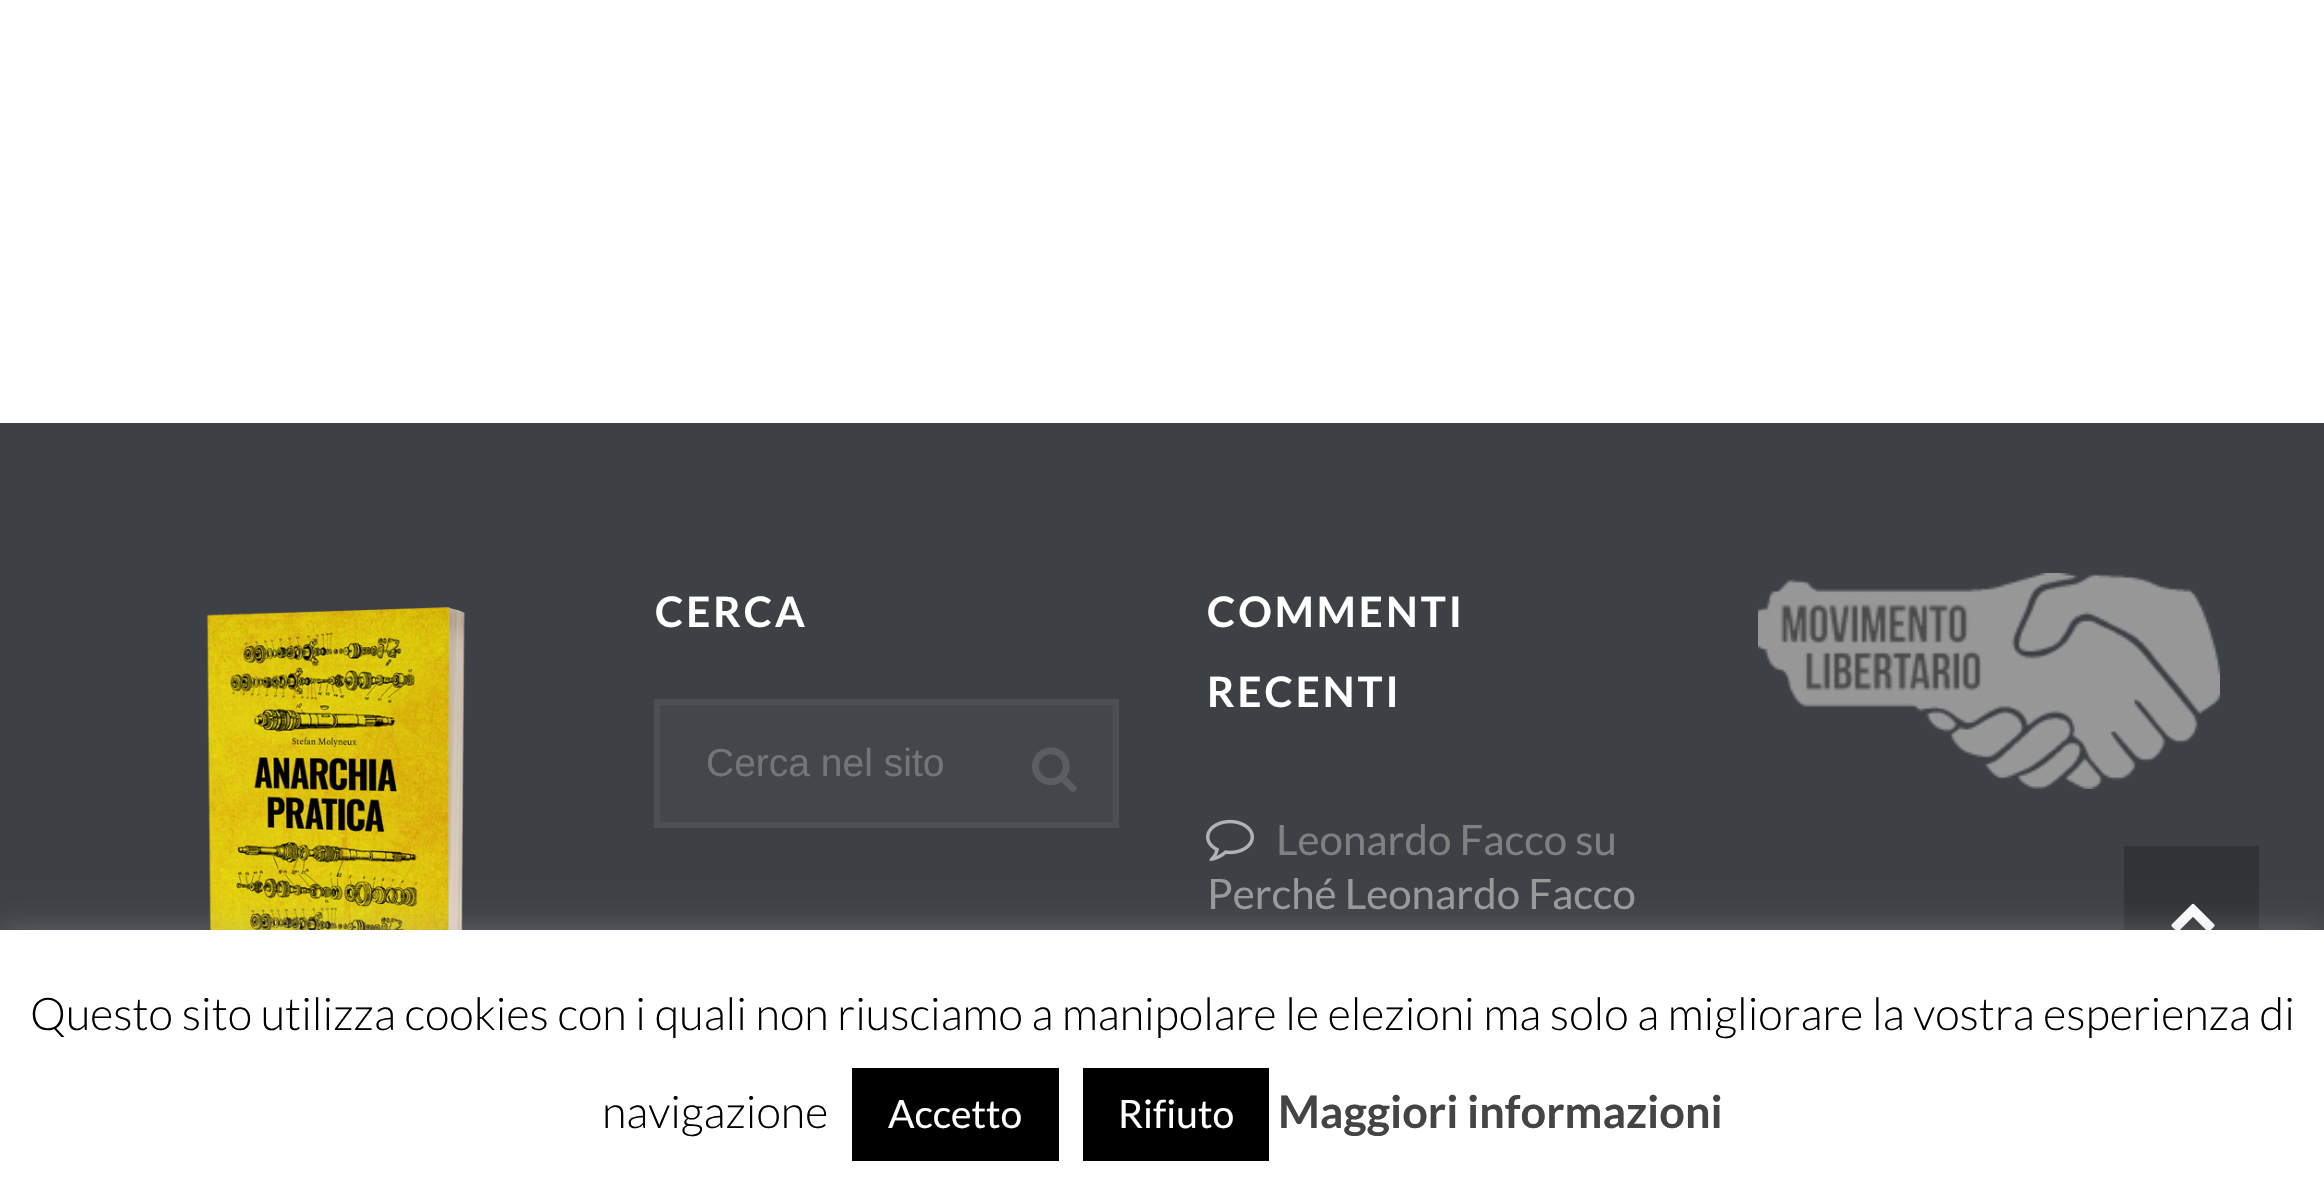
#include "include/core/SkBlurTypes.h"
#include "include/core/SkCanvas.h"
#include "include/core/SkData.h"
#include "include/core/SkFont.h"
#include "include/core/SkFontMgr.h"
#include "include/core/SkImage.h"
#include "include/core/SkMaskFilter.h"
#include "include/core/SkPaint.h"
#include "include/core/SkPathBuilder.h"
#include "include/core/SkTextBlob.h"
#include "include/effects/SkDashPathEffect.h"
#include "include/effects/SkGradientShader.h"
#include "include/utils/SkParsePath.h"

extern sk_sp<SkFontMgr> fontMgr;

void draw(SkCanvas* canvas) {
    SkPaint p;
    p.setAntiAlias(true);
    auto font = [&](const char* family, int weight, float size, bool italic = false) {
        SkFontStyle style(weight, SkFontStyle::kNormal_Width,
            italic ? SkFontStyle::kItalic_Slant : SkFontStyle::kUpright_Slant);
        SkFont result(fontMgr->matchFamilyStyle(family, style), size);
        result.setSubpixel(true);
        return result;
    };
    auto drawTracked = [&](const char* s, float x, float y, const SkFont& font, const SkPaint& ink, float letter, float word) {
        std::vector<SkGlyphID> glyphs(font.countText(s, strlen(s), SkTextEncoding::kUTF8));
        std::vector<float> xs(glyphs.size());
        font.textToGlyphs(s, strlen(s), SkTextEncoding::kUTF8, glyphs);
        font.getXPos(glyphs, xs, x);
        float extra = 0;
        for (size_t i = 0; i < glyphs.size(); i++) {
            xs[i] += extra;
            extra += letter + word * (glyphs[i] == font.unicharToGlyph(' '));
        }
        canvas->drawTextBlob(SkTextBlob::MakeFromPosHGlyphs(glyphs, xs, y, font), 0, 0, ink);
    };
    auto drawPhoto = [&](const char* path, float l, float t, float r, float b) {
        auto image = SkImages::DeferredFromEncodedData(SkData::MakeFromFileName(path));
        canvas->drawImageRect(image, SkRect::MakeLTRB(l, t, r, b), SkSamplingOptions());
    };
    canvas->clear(0xFFFFFFFF);
    p.setColor(0xFF3D4045);
    canvas->drawRect(SkRect::MakeLTRB(0, 423, 2324, 930), p);
    drawPhoto("media/1.png", 206, 607, 466, 930);
    auto font1 = font("Lato", 700, 42);
    p.setColor(0xFFFFFFFF);
    drawTracked("CERCA", 655, 627, font1, p, 3, 0);
    p.setColor(0xFF43464B);
    canvas->drawRect(SkRect::MakeLTRB(657, 702, 1116, 825), p);
    p.setStyle(SkPaint::kStroke_Style);
    p.setStrokeWidth(6);
    p.setColor(0xFF4C4F54);
    canvas->drawRect(SkRect::MakeLTRB(657, 702, 1116, 825), p);
    auto font2 = font("Liberation Sans", 400, 39);
    p.setStyle(SkPaint::kFill_Style);
    p.setColor(0xFF757575);
    canvas->drawString("Cerca nel sito", 706, 776, font2, p);
    drawPhoto("media/2.png", 1032, 747, 1077, 792);
    p.setColor(0xFFFFFFFF);
    drawTracked("COMMENTI", 1207, 627, font1, p, 3, 0);
    drawTracked("RECENTI", 1207, 707, font1, p, 3, 0);
    drawPhoto("media/3.png", 1206, 819, 1254, 861);
    auto font3 = font("Lato", 400, 42);
    p.setColor(0xFF808080);
    canvas->drawString("Leonardo Facco su", 1276, 855, font3, p);
    p.setColor(0xFF999999);
    canvas->drawString("Perché Leonardo Facco", 1207, 909, font3, p);
    drawPhoto("media/4.png", 1758, 573, 2220, 789);
    p.setColor(0x33000000);
    canvas->drawRect(SkRect::MakeLTRB(2124, 846, 2259, 930), p);
    drawPhoto("media/5.png", 2171, 903, 2215, 930);
    p.setColor(0x4DACABAB);
    p.setMaskFilter(SkMaskFilter::MakeBlur(kNormal_SkBlurStyle, 15));
    canvas->drawRect(SkRect::MakeLTRB(0, 927, 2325, 1194), p);
    p.setMaskFilter(nullptr);
    p.setColor(0xFFFFFFFF);
    canvas->drawRect(SkRect::MakeLTRB(0, 930, 2324, 1196), p);
    auto font4 = font("Lato", 300, 45);
    p.setColor(0xFF000000);
    canvas->drawString("Questo sito utilizza cookies con i quali non riusciamo a manipolare le elezioni ma solo a migliorare la vostra esperienza di", 30, 1030, font4, p);
    canvas->drawString("navigazione", 602, 1128, font4, p);
    canvas->drawRect(SkRect::MakeLTRB(852, 1068, 1059, 1161), p);
    auto font5 = font("Lato", 400, 39);
    p.setColor(0xFFFFFFFF);
    canvas->drawString("Accetto", 888, 1128, font5, p);
    p.setColor(0xFF000000);
    canvas->drawRect(SkRect::MakeLTRB(1083, 1068, 1269, 1161), p);
    p.setColor(0xFFFFFFFF);
    canvas->drawString("Rifiuto", 1118, 1128, font5, p);
    auto font6 = font("Lato", 700, 45);
    p.setColor(0xFF444444);
    canvas->drawString("Maggiori informazioni", 1278, 1128, font6, p);
}
